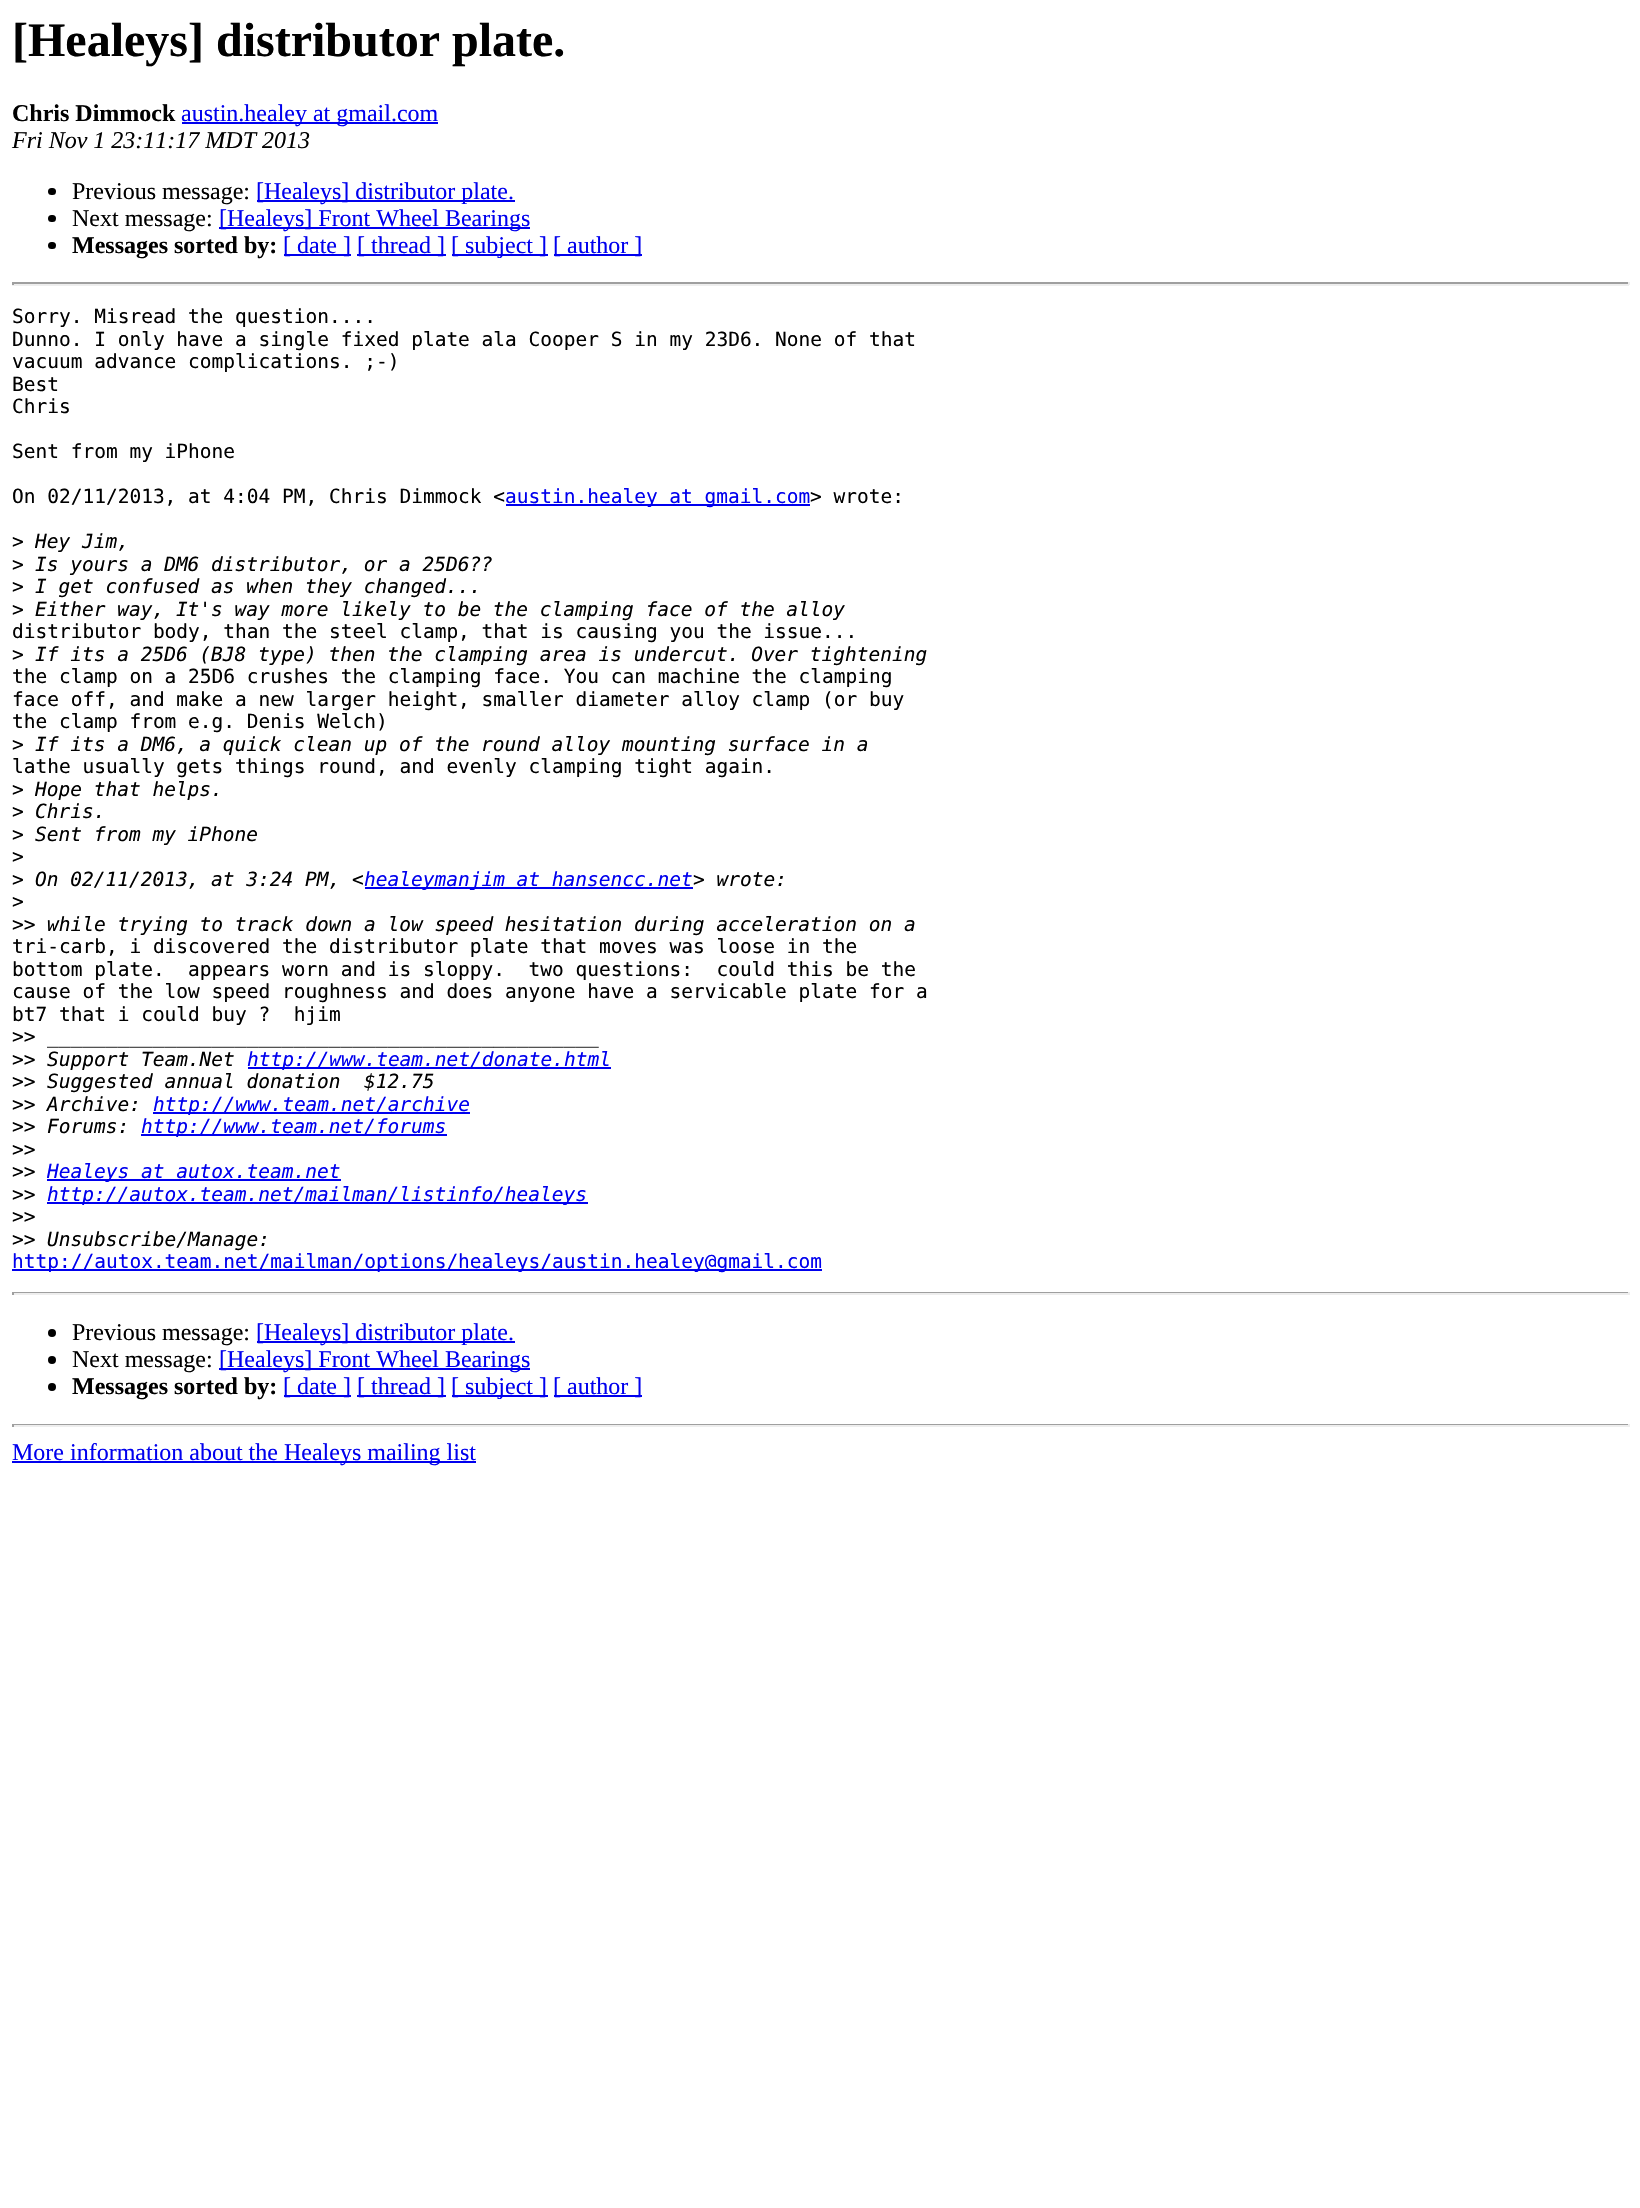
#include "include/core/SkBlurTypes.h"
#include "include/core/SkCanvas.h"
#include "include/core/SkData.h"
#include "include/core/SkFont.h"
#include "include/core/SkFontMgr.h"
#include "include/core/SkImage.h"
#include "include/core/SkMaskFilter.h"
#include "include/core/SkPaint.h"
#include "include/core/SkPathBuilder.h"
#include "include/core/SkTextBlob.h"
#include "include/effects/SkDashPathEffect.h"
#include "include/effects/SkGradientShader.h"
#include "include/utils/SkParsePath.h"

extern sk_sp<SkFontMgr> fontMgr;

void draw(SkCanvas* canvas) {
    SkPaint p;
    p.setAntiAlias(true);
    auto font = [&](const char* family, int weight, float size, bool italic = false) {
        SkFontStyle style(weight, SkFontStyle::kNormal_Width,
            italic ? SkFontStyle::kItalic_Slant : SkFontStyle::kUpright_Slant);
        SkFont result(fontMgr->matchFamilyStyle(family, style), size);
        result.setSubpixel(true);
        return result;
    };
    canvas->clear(0xFFFFFFFF);
    auto font1 = font("Liberation Serif", 700, 48);
    p.setColor(0xFF000000);
    canvas->drawString("[Healeys] distributor plate.", 12, 56, font1, p);
    auto font2 = font("Liberation Serif", 700, 24);
    canvas->drawString("Chris Dimmock", 12, 121, font2, p);
    p.setColor(0xFF0000EE);
    canvas->drawRect(SkRect::MakeLTRB(182, 122, 438, 124), p);
    auto font3 = font("Liberation Serif", 400, 24);
    canvas->drawString("austin.healey at gmail.com", 181, 121, font3, p);
    auto font4 = font("Liberation Serif", 400, 24, true);
    p.setColor(0xFF000000);
    canvas->drawString("Fri Nov 1 23:11:17 MDT 2013", 12, 148, font4, p);
    canvas->drawRoundRect(SkRect::MakeLTRB(48, 188, 56, 195), 3.5f, 3.5f, p);
    canvas->drawString("Previous message:", 72, 199, font3, p);
    p.setColor(0xFF0000EE);
    canvas->drawRect(SkRect::MakeLTRB(257, 200, 515, 202), p);
    canvas->drawString("[Healeys] distributor plate.", 256, 199, font3, p);
    p.setColor(0xFF000000);
    canvas->drawRoundRect(SkRect::MakeLTRB(48, 215, 56, 222), 3.5f, 3.5f, p);
    canvas->drawString("Next message:", 72, 226, font3, p);
    p.setColor(0xFF0000EE);
    canvas->drawRect(SkRect::MakeLTRB(219, 227, 530, 229), p);
    canvas->drawString("[Healeys] Front Wheel Bearings", 219, 226, font3, p);
    p.setColor(0xFF000000);
    canvas->drawRoundRect(SkRect::MakeLTRB(48, 242, 56, 249), 3.5f, 3.5f, p);
    canvas->drawString("Messages sorted by:", 72, 253, font2, p);
    p.setColor(0xFF0000EE);
    canvas->drawRect(SkRect::MakeLTRB(284, 254, 351, 256), p);
    canvas->drawString("[ date ]", 283, 253, font3, p);
    canvas->drawRect(SkRect::MakeLTRB(357, 254, 446, 256), p);
    canvas->drawString("[ thread ]", 357, 253, font3, p);
    canvas->drawRect(SkRect::MakeLTRB(452, 254, 548, 256), p);
    canvas->drawString("[ subject ]", 451, 253, font3, p);
    canvas->drawRect(SkRect::MakeLTRB(554, 254, 642, 256), p);
    canvas->drawString("[ author ]", 553, 253, font3, p);
    {
        const struct { float l, t, r, b; SkColor color; } items[] = {
            {12, 282, 1629, 284, 0xFF9F9F9F},
            {1628, 282, 1630, 285, 0xFFEEEEEE},
            {12, 284, 1629, 286, 0xFFEEEEEE},
            {12, 282, 14, 285, 0xFF9F9F9F},
        };
        for (auto [l, t, r, b, color] : items) {
            p.setColor(color);
            canvas->drawRect(SkRect::MakeLTRB(l, t, r, b), p);
        }
    }
    auto font5 = font("DejaVu Sans Mono", 400, 19.5f);
    p.setColor(0xFF000000);
    {
        const struct { const char* s; float x, y; } items[] = {
            {"Sorry. Misread the question....", 12, 323},
            {"Dunno. I only have a single fixed plate ala Cooper S in my 23D6. None of that", 12, 346},
            {"vacuum advance complications. ;-)", 12, 368},
            {"Best", 12, 391},
            {"Chris", 12, 413},
            {"Sent from my iPhone", 12, 458},
            {"On 02/11/2013, at 4:04 PM, Chris Dimmock <", 12, 503},
        };
        for (auto [s, x, y] : items) {
            canvas->drawString(s, x, y, font5, p);
        }
    }
    p.setColor(0xFF0000EE);
    canvas->drawRect(SkRect::MakeLTRB(506, 504, 810, 506), p);
    canvas->drawString("austin.healey at gmail.com", 505, 503, font5, p);
    p.setColor(0xFF000000);
    canvas->drawString("> wrote:", 810, 503, font5, p);
    canvas->drawString(">", 12, 548, font5, p);
    auto font6 = font("DejaVu Sans Mono", 400, 19.5f, true);
    canvas->drawString("Hey Jim,", 35, 548, font6, p);
    canvas->drawString(">", 12, 571, font5, p);
    canvas->drawString("Is yours a DM6 distributor, or a 25D6?\077", 35, 571, font6, p);
    canvas->drawString(">", 12, 593, font5, p);
    canvas->drawString("I get confused as when they changed...", 35, 593, font6, p);
    canvas->drawString(">", 12, 616, font5, p);
    canvas->drawString("Either way, It's way more likely to be the clamping face of the alloy", 35, 616, font6, p);
    canvas->drawString("distributor body, than the steel clamp, that is causing you the issue...", 12, 638, font5, p);
    canvas->drawString(">", 12, 661, font5, p);
    canvas->drawString("If its a 25D6 (BJ8 type) then the clamping area is undercut. Over tightening", 35, 661, font6, p);
    {
        const struct { const char* s; float x, y; } items[] = {
            {"the clamp on a 25D6 crushes the clamping face. You can machine the clamping", 12, 683},
            {"face off, and make a new larger height, smaller diameter alloy clamp (or buy", 12, 706},
            {"the clamp from e.g. Denis Welch)", 12, 728},
            {">", 12, 751},
        };
        for (auto [s, x, y] : items) {
            canvas->drawString(s, x, y, font5, p);
        }
    }
    canvas->drawString("If its a DM6, a quick clean up of the round alloy mounting surface in a", 35, 751, font6, p);
    canvas->drawString("lathe usually gets things round, and evenly clamping tight again.", 12, 773, font5, p);
    canvas->drawString(">", 12, 796, font5, p);
    canvas->drawString("Hope that helps.", 35, 796, font6, p);
    canvas->drawString(">", 12, 818, font5, p);
    canvas->drawString("Chris.", 35, 818, font6, p);
    canvas->drawString(">", 12, 841, font5, p);
    canvas->drawString("Sent from my iPhone", 35, 841, font6, p);
    canvas->drawString(">", 12, 863, font5, p);
    canvas->drawString(">", 12, 886, font5, p);
    canvas->drawString("On 02/11/2013, at 3:24 PM, <", 35, 886, font6, p);
    p.setColor(0xFF0000EE);
    canvas->drawRect(SkRect::MakeLTRB(365, 887, 693, 889), p);
    canvas->drawString("healeymanjim at hansencc.net", 364, 886, font6, p);
    p.setColor(0xFF000000);
    canvas->drawString("> wrote:", 693, 886, font6, p);
    canvas->drawString(">", 12, 908, font5, p);
    canvas->drawString(">>", 12, 931, font5, p);
    canvas->drawString("while trying to track down a low speed hesitation during acceleration on a", 47, 931, font6, p);
    {
        const struct { const char* s; float x, y; } items[] = {
            {"tri-carb, i discovered the distributor plate that moves was loose in the", 12, 953},
            {"bottom plate.  appears worn and is sloppy.  two questions:  could this be the", 12, 976},
            {"cause of the low speed roughness and does anyone have a servicable plate for a", 12, 998},
            {"bt7 that i could buy ?  hjim", 12, 1021},
            {">>", 12, 1043},
        };
        for (auto [s, x, y] : items) {
            canvas->drawString(s, x, y, font5, p);
        }
    }
    canvas->drawString("_______________________________________________", 47, 1043, font6, p);
    canvas->drawString(">>", 12, 1066, font5, p);
    canvas->drawString("Support Team.Net", 47, 1066, font6, p);
    p.setColor(0xFF0000EE);
    canvas->drawRect(SkRect::MakeLTRB(248, 1067, 611, 1069), p);
    canvas->drawString("http://www.team.net/donate.html", 247, 1066, font6, p);
    p.setColor(0xFF000000);
    canvas->drawString(">>", 12, 1088, font5, p);
    canvas->drawString("Suggested annual donation  $12.75", 47, 1088, font6, p);
    canvas->drawString(">>", 12, 1111, font5, p);
    canvas->drawString("Archive:", 47, 1111, font6, p);
    p.setColor(0xFF0000EE);
    canvas->drawRect(SkRect::MakeLTRB(153, 1112, 470, 1114), p);
    canvas->drawString("http://www.team.net/archive", 153, 1111, font6, p);
    p.setColor(0xFF000000);
    canvas->drawString(">>", 12, 1133, font5, p);
    canvas->drawString("Forums:", 47, 1133, font6, p);
    p.setColor(0xFF0000EE);
    canvas->drawRect(SkRect::MakeLTRB(141, 1134, 447, 1136), p);
    canvas->drawString("http://www.team.net/forums", 141, 1133, font6, p);
    p.setColor(0xFF000000);
    canvas->drawString(">>", 12, 1156, font5, p);
    canvas->drawString(">>", 12, 1178, font5, p);
    p.setColor(0xFF0000EE);
    canvas->drawRect(SkRect::MakeLTRB(47, 1179, 341, 1181), p);
    canvas->drawString("Healeys at autox.team.net", 47, 1178, font6, p);
    p.setColor(0xFF000000);
    canvas->drawString(">>", 12, 1201, font5, p);
    p.setColor(0xFF0000EE);
    canvas->drawRect(SkRect::MakeLTRB(47, 1202, 588, 1204), p);
    canvas->drawString("http://autox.team.net/mailman/listinfo/healeys", 47, 1201, font6, p);
    p.setColor(0xFF000000);
    canvas->drawString(">>", 12, 1223, font5, p);
    canvas->drawString(">>", 12, 1246, font5, p);
    canvas->drawString("Unsubscribe/Manage:", 47, 1246, font6, p);
    p.setColor(0xFF0000EE);
    canvas->drawRect(SkRect::MakeLTRB(12, 1269, 822, 1271), p);
    canvas->drawString("http://autox.team.net/mailman/options/healeys/austin.healey@gmail.com", 12, 1268, font5, p);
    {
        const struct { float l, t, r, b; SkColor color; } items[] = {
            {12, 1292, 1629, 1293, 0xFF9F9F9F},
            {1628, 1292, 1630, 1295, 0xFFEEEEEE},
            {12, 1293, 1629, 1295, 0xFFEEEEEE},
            {12, 1292, 14, 1295, 0xFF9F9F9F},
        };
        for (auto [l, t, r, b, color] : items) {
            p.setColor(color);
            canvas->drawRect(SkRect::MakeLTRB(l, t, r, b), p);
        }
    }
    p.setColor(0xFF000000);
    canvas->drawCircle(52, 1333, 4, p);
    canvas->drawString("Previous message:", 72, 1340, font3, p);
    p.setColor(0xFF0000EE);
    canvas->drawRect(SkRect::MakeLTRB(257, 1341, 515, 1343), p);
    canvas->drawString("[Healeys] distributor plate.", 256, 1340, font3, p);
    p.setColor(0xFF000000);
    canvas->drawCircle(52, 1360, 4, p);
    canvas->drawString("Next message:", 72, 1367, font3, p);
    p.setColor(0xFF0000EE);
    canvas->drawRect(SkRect::MakeLTRB(219, 1368, 530, 1370), p);
    canvas->drawString("[Healeys] Front Wheel Bearings", 219, 1367, font3, p);
    p.setColor(0xFF000000);
    canvas->drawCircle(52, 1387, 4, p);
    canvas->drawString("Messages sorted by:", 72, 1394, font2, p);
    p.setColor(0xFF0000EE);
    canvas->drawRect(SkRect::MakeLTRB(284, 1395, 351, 1397), p);
    canvas->drawString("[ date ]", 283, 1394, font3, p);
    canvas->drawRect(SkRect::MakeLTRB(357, 1395, 446, 1397), p);
    canvas->drawString("[ thread ]", 357, 1394, font3, p);
    canvas->drawRect(SkRect::MakeLTRB(452, 1395, 548, 1397), p);
    canvas->drawString("[ subject ]", 451, 1394, font3, p);
    canvas->drawRect(SkRect::MakeLTRB(554, 1395, 642, 1397), p);
    canvas->drawString("[ author ]", 553, 1394, font3, p);
    {
        const struct { float l, t, r, b; SkColor color; } items[] = {
            {12, 1424, 1629, 1425, 0xFF9F9F9F},
            {1628, 1424, 1630, 1427, 0xFFEEEEEE},
            {12, 1425, 1629, 1427, 0xFFEEEEEE},
            {12, 1424, 14, 1427, 0xFF9F9F9F},
            {12, 1461, 476, 1463, 0xFF0000EE},
        };
        for (auto [l, t, r, b, color] : items) {
            p.setColor(color);
            canvas->drawRect(SkRect::MakeLTRB(l, t, r, b), p);
        }
    }
    canvas->drawString("More information about the Healeys mailing list", 12, 1460, font3, p);
}
